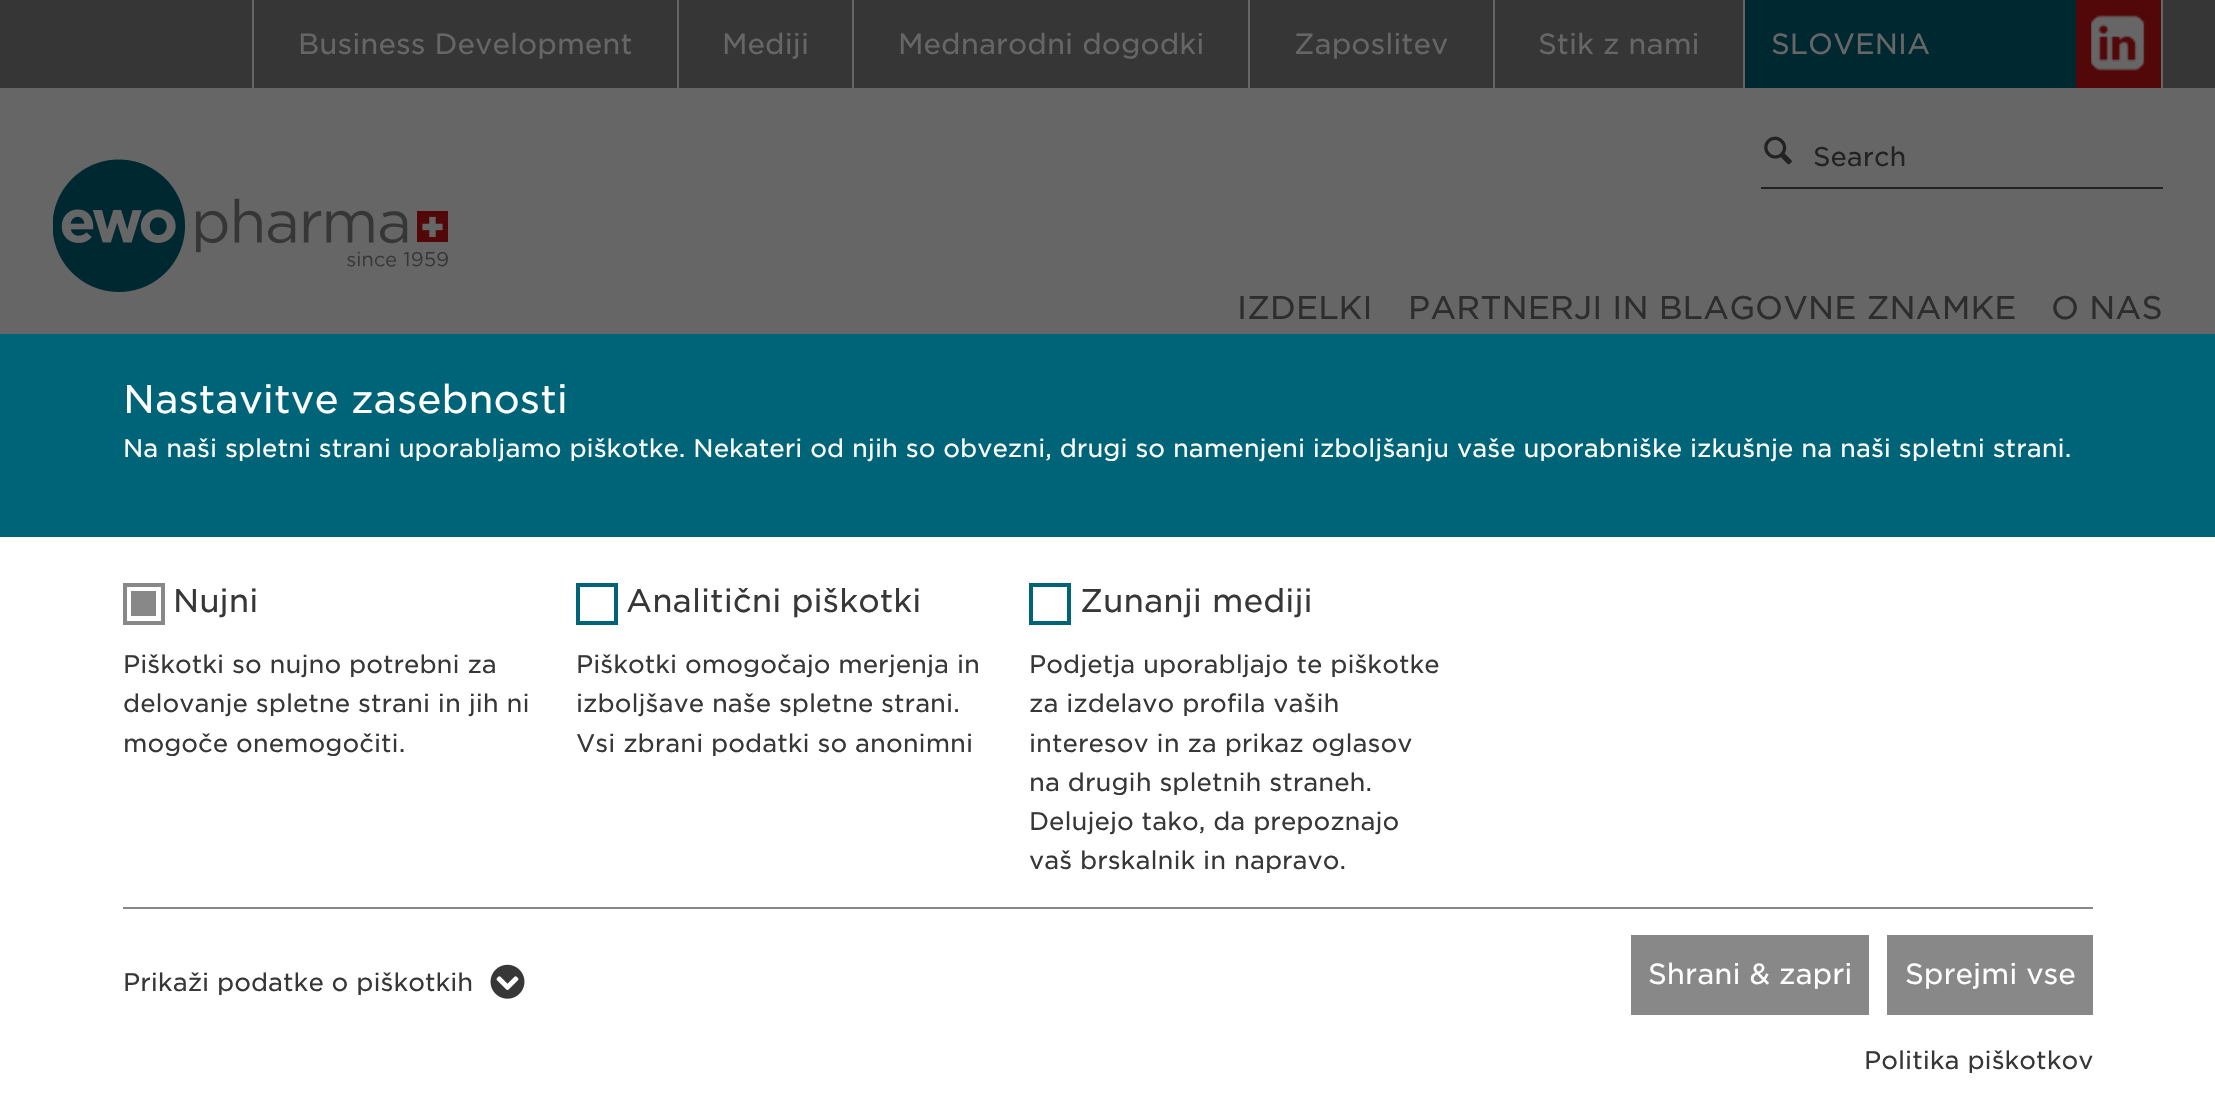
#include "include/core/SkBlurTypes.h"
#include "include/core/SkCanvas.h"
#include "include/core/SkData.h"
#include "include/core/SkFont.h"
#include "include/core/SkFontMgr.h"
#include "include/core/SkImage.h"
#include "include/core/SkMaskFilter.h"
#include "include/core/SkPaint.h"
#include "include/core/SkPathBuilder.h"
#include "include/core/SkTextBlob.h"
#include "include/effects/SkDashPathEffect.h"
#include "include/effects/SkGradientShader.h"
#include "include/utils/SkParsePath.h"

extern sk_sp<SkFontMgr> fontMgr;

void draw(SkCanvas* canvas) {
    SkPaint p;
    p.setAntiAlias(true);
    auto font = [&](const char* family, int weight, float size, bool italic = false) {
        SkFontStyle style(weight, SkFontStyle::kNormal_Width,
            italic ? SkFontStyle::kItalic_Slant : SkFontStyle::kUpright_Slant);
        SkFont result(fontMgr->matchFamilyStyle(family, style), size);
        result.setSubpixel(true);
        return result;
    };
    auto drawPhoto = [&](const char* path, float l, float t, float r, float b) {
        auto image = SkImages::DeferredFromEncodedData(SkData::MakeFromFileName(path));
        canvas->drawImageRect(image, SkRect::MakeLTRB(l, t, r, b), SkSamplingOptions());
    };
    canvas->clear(0xFF666666);
    p.setColor(0xFF363636);
    canvas->drawRect(SkRect::MakeLTRB(0, 0, 2215, 88), p);
    p.setColor(0xFF666666);
    canvas->drawRect(SkRect::MakeLTRB(252, 0, 254, 88), p);
    auto font1 = font("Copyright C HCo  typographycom", 300, 28);
    canvas->drawString("Business Development", 298, 54, font1, p);
    canvas->drawRect(SkRect::MakeLTRB(677, 0, 679, 88), p);
    canvas->drawString("Mediji", 722, 54, font1, p);
    canvas->drawRect(SkRect::MakeLTRB(852, 0, 854, 88), p);
    canvas->drawString("Mednarodni dogodki", 898, 54, font1, p);
    canvas->drawRect(SkRect::MakeLTRB(1248, 0, 1250, 88), p);
    canvas->drawString("Zaposlitev", 1294, 54, font1, p);
    canvas->drawRect(SkRect::MakeLTRB(1493, 0, 1495, 88), p);
    canvas->drawString("Stik z nami", 1538, 54, font1, p);
    p.setColor(0xFF002830);
    canvas->drawRect(SkRect::MakeLTRB(1745, 0, 2076, 88), p);
    p.setColor(0xFF666666);
    canvas->drawRect(SkRect::MakeLTRB(1743, 0, 1745, 88), p);
    canvas->drawString("SLOVENIA", 1771, 54, font1, p);
    p.setColor(0xFF520808);
    canvas->drawRect(SkRect::MakeLTRB(2076, 0, 2161, 88), p);
    drawPhoto("media/1.png", 2091, 15, 2145, 71);
    p.setColor(0xFF666666);
    canvas->drawRect(SkRect::MakeLTRB(2161, 0, 2163, 88), p);
    drawPhoto("media/2.png", 53, 159, 448, 292);
    drawPhoto("media/3.png", 1764, 136, 1792, 165);
    p.setColor(0xFF222222);
    canvas->drawRect(SkRect::MakeLTRB(1761, 187, 2163, 189), p);
    auto font2 = font("Copyright C HCo  typographycom", 300, 26);
    canvas->drawString("Search", 1813, 166, font2, p);
    auto font3 = font("Copyright C HCo  typographycom", 300, 31.5f);
    p.setColor(0xFF2D2D2D);
    {
        const struct { const char* s; float x, y; } items[] = {
            {"IZDELKI", 1237, 319},
            {"PARTNERJI IN BLAGOVNE ZNAMKE", 1408, 319},
            {"O NAS", 2051, 319},
        };
        for (auto [s, x, y] : items) {
            canvas->drawString(s, x, y, font3, p);
        }
    }
    p.setColor(0xFFFFFFFF);
    canvas->drawRect(SkRect::MakeLTRB(0, 537, 2215, 1114), p);
    p.setColor(0xFF006478);
    canvas->drawRect(SkRect::MakeLTRB(0, 334, 2215, 537), p);
    auto font4 = font("Copyright C HCo  typographycom", 300, 38.5f);
    p.setColor(0xFFFFFFFF);
    canvas->drawString("Nastavitve zasebnosti", 123, 413, font4, p);
    auto font5 = font("Copyright C HCo  typographycom", 300, 24.5f);
    canvas->drawString("Na naši spletni strani uporabljamo piškotke. Nekateri od njih so obvezni, drugi so namenjeni izboljšanju vaše uporabniške izkušnje na naši spletni strani.", 123, 457, font5, p);
    p.setColor(0xFF888888);
    canvas->drawRect(SkRect::MakeLTRB(123, 907, 2093, 909), p);
    canvas->drawRect(SkRect::MakeLTRB(131, 591, 156, 616), p);
    p.setStyle(SkPaint::kStroke_Style);
    p.setStrokeWidth(4);
    canvas->drawRect(SkRect::MakeLTRB(125, 585, 163, 623), p);
    p.setStyle(SkPaint::kFill_Style);
    p.setColor(0xFF373737);
    canvas->drawString("Nujni", 173, 612, font3, p);
    {
        const struct { const char* s; float x, y; } items[] = {
            {"Piškotki so nujno potrebni za", 123, 673},
            {"delovanje spletne strani in jih ni", 123, 712},
            {"mogoče onemogočiti.", 123, 752},
        };
        for (auto [s, x, y] : items) {
            canvas->drawString(s, x, y, font5, p);
        }
    }
    p.setStyle(SkPaint::kStroke_Style);
    p.setColor(0xFF006478);
    canvas->drawRect(SkRect::MakeLTRB(578, 585, 616, 623), p);
    p.setStyle(SkPaint::kFill_Style);
    p.setColor(0xFF373737);
    canvas->drawString("Analitični piškotki", 626, 612, font3, p);
    {
        const struct { const char* s; float x, y; } items[] = {
            {"Piškotki omogočajo merjenja in", 576, 673},
            {"izboljšave naše spletne strani.", 576, 712},
            {"Vsi zbrani podatki so anonimni", 576, 752},
        };
        for (auto [s, x, y] : items) {
            canvas->drawString(s, x, y, font5, p);
        }
    }
    p.setStyle(SkPaint::kStroke_Style);
    p.setColor(0xFF006478);
    canvas->drawRect(SkRect::MakeLTRB(1031, 585, 1069, 623), p);
    p.setStyle(SkPaint::kFill_Style);
    p.setColor(0xFF373737);
    canvas->drawString("Zunanji mediji", 1080, 612, font3, p);
    {
        const struct { const char* s; float x, y; } items[] = {
            {"Podjetja uporabljajo te piškotke", 1029, 673},
            {"za izdelavo profila vaših", 1029, 712},
            {"interesov in za prikaz oglasov", 1029, 752},
            {"na drugih spletnih straneh.", 1029, 791},
            {"Delujejo tako, da prepoznajo", 1029, 830},
            {"vaš brskalnik in napravo.", 1029, 869},
            {"Prikaži podatke o piškotkih", 123, 991},
        };
        for (auto [s, x, y] : items) {
            canvas->drawString(s, x, y, font5, p);
        }
    }
    drawPhoto("media/4.png", 490, 964, 525, 999);
    p.setColor(0xFF888888);
    canvas->drawRect(SkRect::MakeLTRB(1631, 935, 1869, 1015), p);
    p.setColor(0xFFFFFFFF);
    canvas->drawString("Shrani & zapri", 1648, 984, font1, p);
    p.setColor(0xFF888888);
    canvas->drawRect(SkRect::MakeLTRB(1887, 935, 2093, 1015), p);
    p.setColor(0xFFFFFFFF);
    canvas->drawString("Sprejmi vse", 1905, 984, font1, p);
    p.setColor(0xFF373737);
    canvas->drawString("Politika piškotkov", 1864, 1069, font5, p);
}
